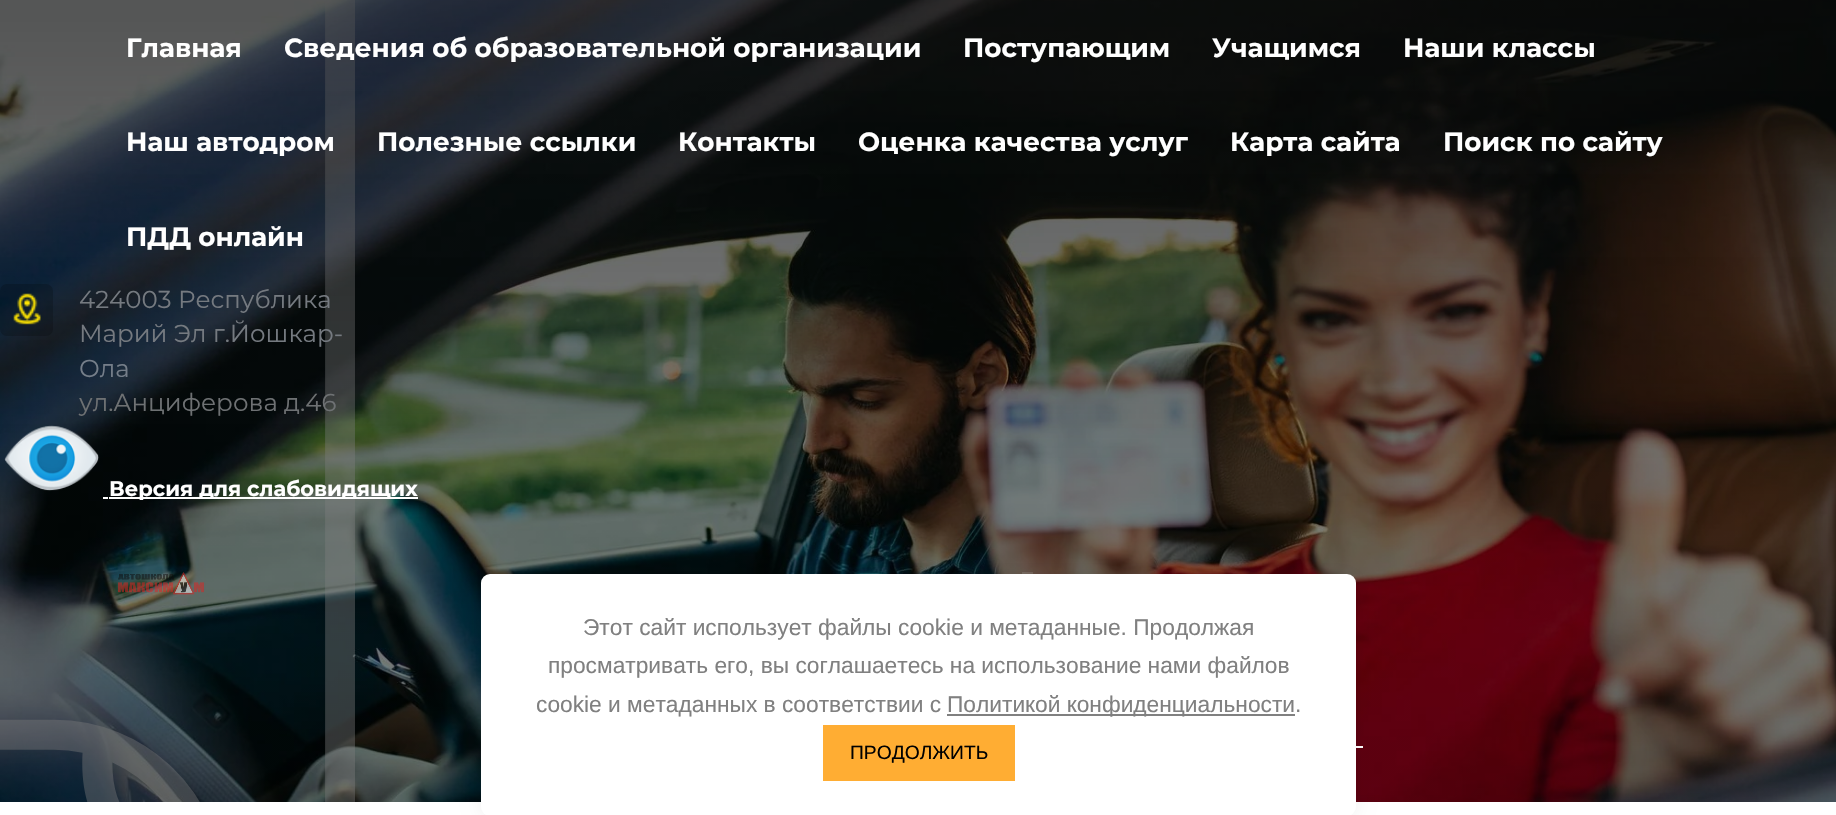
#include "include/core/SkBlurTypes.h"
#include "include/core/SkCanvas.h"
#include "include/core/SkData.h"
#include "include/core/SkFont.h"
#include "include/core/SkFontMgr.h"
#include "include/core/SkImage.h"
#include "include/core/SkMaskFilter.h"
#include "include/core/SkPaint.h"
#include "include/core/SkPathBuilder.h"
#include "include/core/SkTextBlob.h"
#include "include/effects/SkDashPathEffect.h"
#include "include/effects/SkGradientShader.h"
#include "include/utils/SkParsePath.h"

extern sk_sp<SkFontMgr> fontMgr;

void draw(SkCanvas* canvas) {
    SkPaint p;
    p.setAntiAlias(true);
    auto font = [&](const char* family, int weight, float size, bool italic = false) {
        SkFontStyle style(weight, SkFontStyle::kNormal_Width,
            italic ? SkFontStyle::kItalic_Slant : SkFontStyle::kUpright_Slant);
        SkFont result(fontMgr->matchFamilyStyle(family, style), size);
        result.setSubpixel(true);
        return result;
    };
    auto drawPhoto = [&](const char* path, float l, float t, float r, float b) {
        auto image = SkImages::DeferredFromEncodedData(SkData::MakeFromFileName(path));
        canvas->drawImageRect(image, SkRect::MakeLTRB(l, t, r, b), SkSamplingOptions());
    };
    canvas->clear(0xFFFFFFFF);
    drawPhoto("media/1.png", 0, 0, 1836, 802);
    auto font1 = font("Montserrat", 700, 26.25f);
    p.setColor(0xFFFFFFFF);
    {
        const struct { const char* s; float x, y; } items[] = {
            {"Главная", 126, 57},
            {"Сведения об образовательной организации", 284, 57},
            {"Поступающим", 963, 57},
            {"Учащимся", 1212, 57},
            {"Наши классы", 1403, 57},
            {"Наш автодром", 126, 151},
            {"Полезные ссылки", 377, 151},
            {"Контакты", 678, 151},
            {"Оценка качества услуг", 858, 151},
            {"Карта сайта", 1230, 151},
            {"Поиск по сайту", 1443, 151},
            {"ПДД онлайн", 126, 246},
        };
        for (auto [s, x, y] : items) {
            canvas->drawString(s, x, y, font1, p);
        }
    }
    p.setColor(0x33000000);
    canvas->drawRoundRect(SkRect::MakeLTRB(0, 284, 53, 336), 7, 7, p);
    drawPhoto("media/2.png", 13, 293, 41, 325);
    auto font2 = font("Montserrat", 400, 24.5f);
    p.setColor(0xFF757A80);
    canvas->drawString("424003 Республика", 79, 308, font2, p);
    canvas->drawString("Марий Эл г.Йошкар-", 79, 342, font2, p);
    p.setColor(0xFF757E89);
    canvas->drawString("Ола", 79, 377, font2, p);
    p.setColor(0xFF6E7173);
    canvas->drawString("ул.Анциферова д.46", 79, 411, font2, p);
    drawPhoto("media/3.png", 4, 425, 99, 491);
    p.setColor(0xFFFFFFFF);
    canvas->drawRect(SkRect::MakeLTRB(109, 497, 418, 499), p);
    auto font3 = font("Montserrat", 700, 21);
    canvas->drawString("Версия для слабовидящих", 109, 496, font3, p);
    canvas->drawRect(SkRect::MakeLTRB(103, 497, 108, 499), p);
    drawPhoto("media/4.png", 118, 572, 204, 595);
    p.setColor(0x1CFFFFFF);
    canvas->drawRect(SkRect::MakeLTRB(1022, 572, 1033, 574), p);
    p.setColor(0xFFFFFFFF);
    canvas->drawRect(SkRect::MakeLTRB(1356, 746, 1363, 748), p);
    p.setColor(0x0F000000);
    p.setMaskFilter(SkMaskFilter::MakeBlur(kNormal_SkBlurStyle, 9));
    canvas->drawRoundRect(SkRect::MakeLTRB(481, 576, 1356, 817), 9, 9, p);
    p.setMaskFilter(nullptr);
    p.setColor(0xFFFFFFFF);
    canvas->drawRoundRect(SkRect::MakeLTRB(481, 574, 1356, 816), 9, 9, p);
    auto font4 = font("Liberation Sans", 400, 22.75f);
    p.setColor(0xFF808080);
    {
        const struct { const char* s; float x, y; } items[] = {
            {"Этот сайт использует файлы cookie и метаданные. Продолжая", 583, 635},
            {"просматривать его, вы соглашаетесь на использование нами файлов", 548, 673},
            {"cookie и метаданных в соответствии с", 536, 712},
        };
        for (auto [s, x, y] : items) {
            canvas->drawString(s, x, y, font4, p);
        }
    }
    canvas->drawRect(SkRect::MakeLTRB(947, 714, 1295, 716), p);
    canvas->drawString("Политикой конфиденциальности.", 947, 712, font4, p);
    p.setColor(0xFFFFAD33);
    canvas->drawRect(SkRect::MakeLTRB(823, 725, 1015, 781), p);
    auto font5 = font("Liberation Sans", 400, 19.25f);
    p.setColor(0xFF000000);
    canvas->drawString("ПРОДОЛЖИТЬ", 850, 759, font5, p);
}
